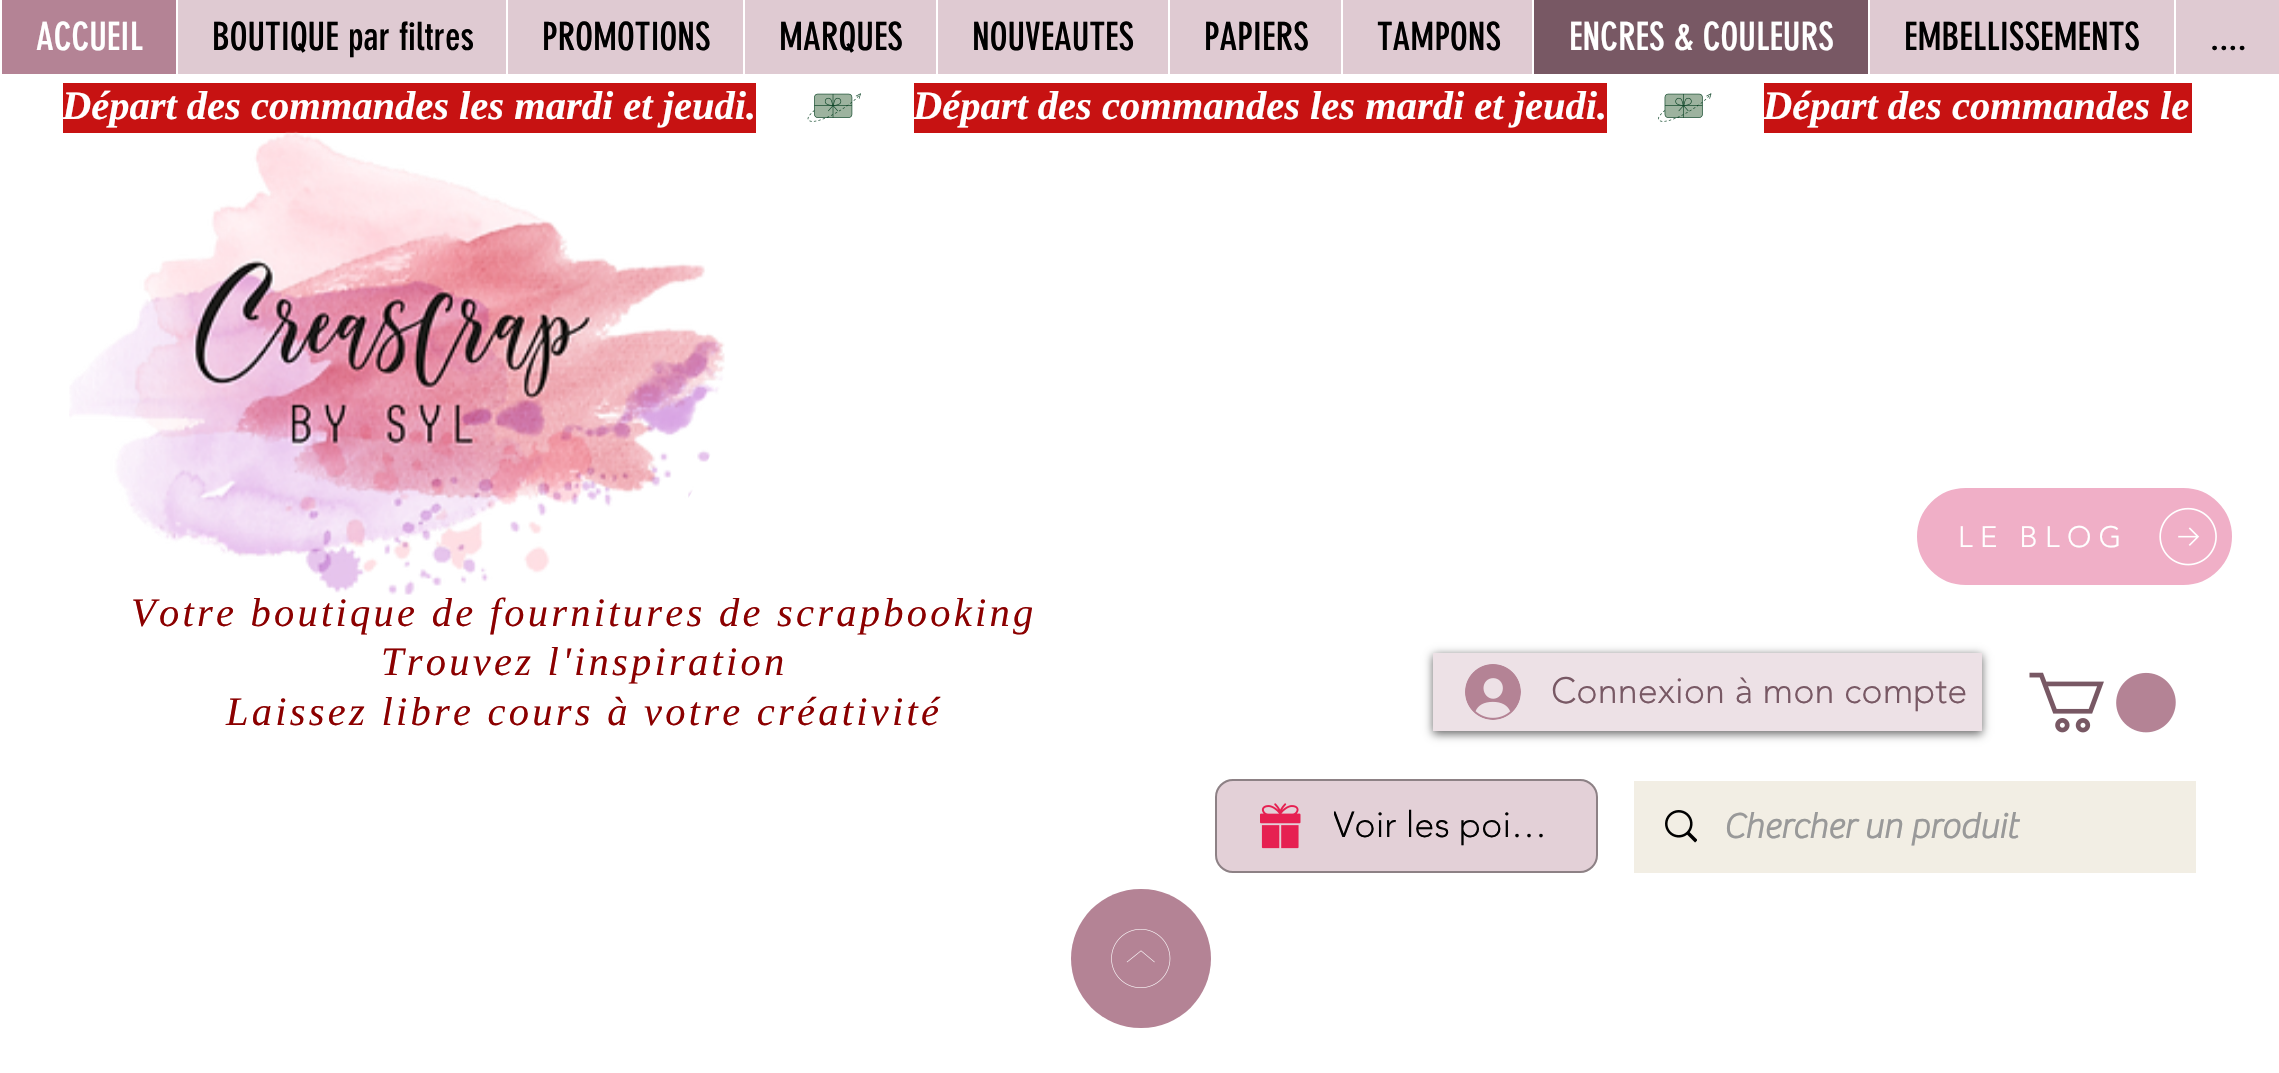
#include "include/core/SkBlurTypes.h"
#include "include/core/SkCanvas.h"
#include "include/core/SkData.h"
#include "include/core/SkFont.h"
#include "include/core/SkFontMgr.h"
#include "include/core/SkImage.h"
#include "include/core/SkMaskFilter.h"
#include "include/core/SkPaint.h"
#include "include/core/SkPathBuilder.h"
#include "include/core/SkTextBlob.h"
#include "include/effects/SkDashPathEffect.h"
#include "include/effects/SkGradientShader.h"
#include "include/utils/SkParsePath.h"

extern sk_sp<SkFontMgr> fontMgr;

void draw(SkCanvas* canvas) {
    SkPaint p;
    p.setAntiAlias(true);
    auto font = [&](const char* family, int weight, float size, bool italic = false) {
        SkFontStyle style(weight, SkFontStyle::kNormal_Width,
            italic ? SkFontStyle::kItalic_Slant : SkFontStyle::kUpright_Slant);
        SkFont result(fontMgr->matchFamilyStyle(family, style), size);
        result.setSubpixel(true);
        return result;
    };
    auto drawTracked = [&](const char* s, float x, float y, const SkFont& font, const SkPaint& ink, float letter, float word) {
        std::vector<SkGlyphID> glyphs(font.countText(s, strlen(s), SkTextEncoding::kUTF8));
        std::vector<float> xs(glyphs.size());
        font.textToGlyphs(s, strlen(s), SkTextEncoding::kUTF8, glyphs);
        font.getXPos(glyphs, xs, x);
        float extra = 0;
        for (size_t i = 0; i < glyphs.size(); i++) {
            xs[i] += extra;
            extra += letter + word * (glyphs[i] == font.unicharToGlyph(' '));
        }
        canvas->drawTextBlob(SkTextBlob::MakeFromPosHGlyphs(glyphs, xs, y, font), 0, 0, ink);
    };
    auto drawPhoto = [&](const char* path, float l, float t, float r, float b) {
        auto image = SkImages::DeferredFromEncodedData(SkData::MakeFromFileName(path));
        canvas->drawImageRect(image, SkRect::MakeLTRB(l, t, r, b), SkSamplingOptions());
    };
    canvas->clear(0xFFFFFFFF);
    p.setColor(0xFFDFCAD2);
    canvas->drawRect(SkRect::MakeLTRB(178, 0, 2279, 74), p);
    p.setColor(0xFFB48395);
    canvas->drawRect(SkRect::MakeLTRB(2, 0, 176, 74), p);
    auto font1 = font("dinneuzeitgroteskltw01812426", 400, 38.25f);
    p.setColor(0xFFFFFFFF);
    canvas->drawString("ACCUEIL", 36, 50, font1, p);
    p.setColor(0xFF000000);
    canvas->drawString("BOUTIQUE par filtres", 212, 50, font1, p);
    p.setColor(0xFFFFFFFF);
    canvas->drawRect(SkRect::MakeLTRB(506, 0, 508, 74), p);
    p.setColor(0xFF000000);
    canvas->drawString("PROMOTIONS", 542, 50, font1, p);
    p.setColor(0xFFFFFFFF);
    canvas->drawRect(SkRect::MakeLTRB(743, 0, 745, 74), p);
    p.setColor(0xFF000000);
    canvas->drawString("MARQUES", 779, 50, font1, p);
    p.setColor(0xFFFFFFFF);
    canvas->drawRect(SkRect::MakeLTRB(936, 0, 938, 74), p);
    p.setColor(0xFF000000);
    canvas->drawString("NOUVEAUTES", 972, 50, font1, p);
    p.setColor(0xFFFFFFFF);
    canvas->drawRect(SkRect::MakeLTRB(1168, 0, 1170, 74), p);
    p.setColor(0xFF000000);
    canvas->drawString("PAPIERS", 1204, 50, font1, p);
    p.setColor(0xFFFFFFFF);
    canvas->drawRect(SkRect::MakeLTRB(1341, 0, 1343, 74), p);
    p.setColor(0xFF000000);
    canvas->drawString("TAMPONS", 1377, 50, font1, p);
    p.setColor(0xFF785864);
    canvas->drawRect(SkRect::MakeLTRB(1534, 0, 1868, 74), p);
    p.setColor(0xFFFFFFFF);
    canvas->drawRect(SkRect::MakeLTRB(1532, 0, 1534, 74), p);
    canvas->drawString("ENCRES & COULEURS", 1569, 50, font1, p);
    canvas->drawRect(SkRect::MakeLTRB(1868, 0, 1870, 74), p);
    p.setColor(0xFF000000);
    canvas->drawString("EMBELLISSEMENTS", 1904, 50, font1, p);
    p.setColor(0xFFFFFFFF);
    canvas->drawRect(SkRect::MakeLTRB(2174, 0, 2176, 74), p);
    p.setColor(0xFF000000);
    canvas->drawString("....", 2210, 50, font1, p);
    p.setColor(0xFFC71212);
    canvas->drawRect(SkRect::MakeLTRB(63, 83, 756, 133), p);
    canvas->save();
    canvas->clipRect(SkRect::MakeLTRB(63, 0, 2192, 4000));
    auto font2 = font("Liberation Serif", 700, 40.5f, true);
    p.setColor(0xFFFFFFFF);
    canvas->drawString("Départ des commandes les mardi et jeudi.", 62, 119, font2, p);
    canvas->restore();
    drawPhoto("media/1.png", 807, 93, 861, 122);
    p.setColor(0xFFC71212);
    canvas->drawRect(SkRect::MakeLTRB(914, 83, 1607, 133), p);
    p.setColor(0xFFFFFFFF);
    canvas->drawString("Départ des commandes les mardi et jeudi.", 913, 119, font2, p);
    drawPhoto("media/2.png", 1658, 93, 1712, 122);
    p.setColor(0xFFC71212);
    canvas->drawRect(SkRect::MakeLTRB(1764, 83, 2192, 133), p);
    p.setColor(0xFFFFFFFF);
    canvas->drawString("Départ des commandes le", 1763, 119, font2, p);
    drawPhoto("media/3.png", 69, 131, 725, 595);
    auto font3 = font("Liberation Serif", 400, 40.5f, true);
    p.setColor(0xFF8B0000);
    {
        const struct { const char* s; float x, y; } items[] = {
            {"Votre boutique de fournitures de scrapbooking", 131, 626},
            {"Trouvez l'inspiration", 381, 675},
            {"Laissez libre cours à votre créativité", 226, 725},
        };
        for (auto [s, x, y] : items) {
            drawTracked(s, x, y, font3, p, 3.25f, 0);
        }
    }
    canvas->save();
    canvas->clipPath(SkPathBuilder(SkPathFillType::kEvenOdd).moveTo(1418, 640).lineTo(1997, 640).lineTo(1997, 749).lineTo(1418, 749).close().moveTo(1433, 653).lineTo(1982, 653).lineTo(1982, 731).lineTo(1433, 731).close().detach(), true);
    p.setColor(0x99000000);
    p.setMaskFilter(SkMaskFilter::MakeBlur(kNormal_SkBlurStyle, 4.5f));
    canvas->drawRect(SkRect::MakeLTRB(1433, 655, 1982, 734), p);
    p.setMaskFilter(nullptr);
    canvas->restore();
    p.setColor(0x3DB48395);
    canvas->drawRect(SkRect::MakeLTRB(1433, 653, 1982, 731), p);
    drawPhoto("media/4.png", 1465, 664, 1521, 720);
    auto font4 = font("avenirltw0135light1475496", 300, 36);
    p.setColor(0xFF785864);
    canvas->drawString("Connexion à mon compte", 1551, 703, font4, p);
    drawPhoto("media/5.png", 2029, 672, 2176, 733);
    p.setColor(0xFFE3D0D7);
    canvas->drawRoundRect(SkRect::MakeLTRB(1215, 779, 1598, 873), 18, 18, p);
    p.setStyle(SkPaint::kStroke_Style);
    p.setStrokeWidth(2);
    p.setColor(0x61000000);
    canvas->drawRoundRect(SkRect::MakeLTRB(1216, 780, 1597, 872), 17, 17, p);
    drawPhoto("media/6.png", 1260, 803, 1301, 849);
    canvas->save();
    canvas->clipRect(SkRect::MakeLTRB(1334, 801, 1559, 851));
    p.setStyle(SkPaint::kFill_Style);
    p.setColor(0xFF000000);
    canvas->drawString("Voir les poi…", 1333, 837, font4, p);
    canvas->restore();
    p.setColor(0xFFF2EEE4);
    canvas->drawRect(SkRect::MakeLTRB(1634, 781, 2196, 873), p);
    drawPhoto("media/7.png", 1665, 810, 1697, 843);
    auto font5 = font("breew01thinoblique", 700, 36);
    p.setColor(0xFF999999);
    canvas->drawString("Chercher un produit", 1723, 838, font5, p);
    p.setColor(0xFFF0AFC7);
    canvas->drawRoundRect(SkRect::MakeLTRB(1916, 487, 2233, 586), 49.5f, 49.5f, p);
    p.setStyle(SkPaint::kStroke_Style);
    p.setColor(0xFFFFFFFF);
    canvas->drawRoundRect(SkRect::MakeLTRB(1916, 487, 2233, 586), 49.5f, 49.5f, p);
    auto font6 = font("avenirltw0135light1475496", 300, 29.25f);
    p.setStyle(SkPaint::kFill_Style);
    drawTracked("LE BLOG", 1958, 547, font6, p, 7.25f, 0);
    drawPhoto("media/8.png", 2159, 507, 2217, 566);
    p.setColor(0xFFB48395);
    canvas->drawRoundRect(SkRect::MakeLTRB(1071, 889, 1211, 1028), 69.5f, 69.5f, p);
    drawPhoto("media/9.png", 1111, 929, 1171, 988);
}
